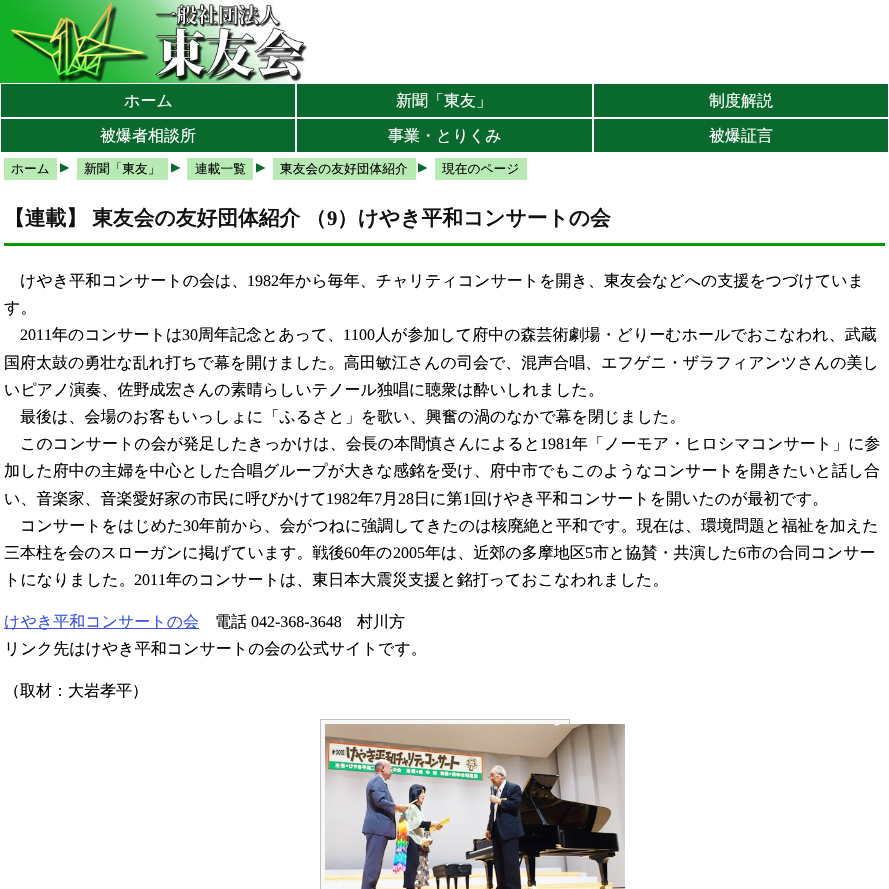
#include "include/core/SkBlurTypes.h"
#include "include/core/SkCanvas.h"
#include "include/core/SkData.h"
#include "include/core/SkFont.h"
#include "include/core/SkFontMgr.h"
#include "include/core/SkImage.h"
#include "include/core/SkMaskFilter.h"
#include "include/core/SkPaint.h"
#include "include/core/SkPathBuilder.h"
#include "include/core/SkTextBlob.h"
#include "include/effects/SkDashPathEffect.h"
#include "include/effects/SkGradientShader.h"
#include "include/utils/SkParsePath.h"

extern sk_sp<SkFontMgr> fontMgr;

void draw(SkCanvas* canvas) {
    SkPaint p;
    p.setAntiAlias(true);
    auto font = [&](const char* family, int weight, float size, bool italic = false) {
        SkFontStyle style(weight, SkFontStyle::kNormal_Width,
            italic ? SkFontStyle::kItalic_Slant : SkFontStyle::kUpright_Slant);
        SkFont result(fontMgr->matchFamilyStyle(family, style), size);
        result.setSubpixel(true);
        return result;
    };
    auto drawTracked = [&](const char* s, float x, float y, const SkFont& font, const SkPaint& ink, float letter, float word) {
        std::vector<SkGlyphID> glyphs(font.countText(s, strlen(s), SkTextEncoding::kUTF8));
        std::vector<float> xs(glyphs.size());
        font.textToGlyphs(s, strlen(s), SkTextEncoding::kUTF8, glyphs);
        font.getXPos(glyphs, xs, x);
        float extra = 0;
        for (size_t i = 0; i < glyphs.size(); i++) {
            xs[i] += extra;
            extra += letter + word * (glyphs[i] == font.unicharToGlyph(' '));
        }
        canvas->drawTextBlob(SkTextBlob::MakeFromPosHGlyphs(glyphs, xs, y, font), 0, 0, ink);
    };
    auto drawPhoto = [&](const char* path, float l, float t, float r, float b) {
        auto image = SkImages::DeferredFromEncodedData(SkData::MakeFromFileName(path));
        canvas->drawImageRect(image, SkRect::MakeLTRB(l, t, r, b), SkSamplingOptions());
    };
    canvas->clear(0xFFFFFFFF);
    drawPhoto("media/1.png", 0, 0, 308, 83);
    p.setColor(0xFF0A692C);
    canvas->drawRect(SkRect::MakeLTRB(1, 84, 295, 117), p);
    auto font1 = font("WenQuanYi Zen Hei", 500, 16);
    p.setColor(0xFFFFFFFF);
    canvas->drawString("ホーム", 124, 106, font1, p);
    p.setColor(0xFF0A692C);
    canvas->drawRect(SkRect::MakeLTRB(297, 84, 592, 117), p);
    p.setColor(0xFFFFFFFF);
    canvas->drawString("新聞「東友」", 396, 106, font1, p);
    p.setColor(0xFF0A692C);
    canvas->drawRect(SkRect::MakeLTRB(594, 84, 888, 117), p);
    p.setColor(0xFFFFFFFF);
    canvas->drawString("制度解説", 709, 106, font1, p);
    p.setColor(0xFF0A692C);
    canvas->drawRect(SkRect::MakeLTRB(1, 119, 295, 152), p);
    p.setColor(0xFFFFFFFF);
    canvas->drawString("被爆者相談所", 100, 141, font1, p);
    p.setColor(0xFF0A692C);
    canvas->drawRect(SkRect::MakeLTRB(297, 119, 592, 152), p);
    p.setColor(0xFFFFFFFF);
    canvas->drawString("事業・とりくみ", 388, 141, font1, p);
    p.setColor(0xFF0A692C);
    canvas->drawRect(SkRect::MakeLTRB(594, 119, 888, 152), p);
    p.setColor(0xFFFFFFFF);
    canvas->drawString("被爆証言", 709, 141, font1, p);
    p.setColor(0xFFB8EAB4);
    canvas->drawRect(SkRect::MakeLTRB(4, 158, 57, 180), p);
    auto font2 = font("WenQuanYi Zen Hei", 500, 12.75f);
    p.setColor(0xFF000000);
    canvas->drawString("ホーム", 11, 173, font2, p);
    auto font3 = font("Liberation Serif", 400, 16);
    p.setColor(0xFF0A692C);
    canvas->save();
    canvas->rotate(90, 60, 160);
    canvas->drawString("▲", 60, 160, font3, p);
    canvas->restore();
    p.setColor(0xFFB8EAB4);
    canvas->drawRect(SkRect::MakeLTRB(77, 158, 168, 180), p);
    p.setColor(0xFF000000);
    canvas->drawString("新聞「東友」", 84, 173, font2, p);
    p.setColor(0xFF0A692C);
    canvas->save();
    canvas->rotate(90, 171, 160);
    canvas->drawString("▲", 171, 160, font3, p);
    canvas->restore();
    p.setColor(0xFFB8EAB4);
    canvas->drawRect(SkRect::MakeLTRB(187, 158, 253, 180), p);
    p.setColor(0xFF000000);
    canvas->drawString("連載一覧", 195, 173, font2, p);
    p.setColor(0xFF0A692C);
    canvas->save();
    canvas->rotate(90, 256, 160);
    canvas->drawString("▲", 256, 160, font3, p);
    canvas->restore();
    p.setColor(0xFFB8EAB4);
    canvas->drawRect(SkRect::MakeLTRB(273, 158, 416, 180), p);
    p.setColor(0xFF000000);
    canvas->drawString("東友会の友好団体紹介", 280, 173, font2, p);
    p.setColor(0xFF0A692C);
    canvas->save();
    canvas->rotate(90, 418, 160);
    canvas->drawString("▲", 418, 160, font3, p);
    canvas->restore();
    p.setColor(0xFFB8EAB4);
    canvas->drawRect(SkRect::MakeLTRB(435, 158, 527, 180), p);
    p.setColor(0xFF000000);
    canvas->drawString("現在のページ", 442, 173, font2, p);
    p.setColor(0xFF009900);
    canvas->drawRect(SkRect::MakeLTRB(4, 243, 885, 246), p);
    auto font4 = font("WenQuanYi Zen Hei", 700, 20.75f);
    p.setColor(0xFF111111);
    drawTracked("【連載】 東友会の友好団体紹介 （", 4, 225, font4, p, 0, -1);
    auto font5 = font("Liberation Serif", 700, 20.75f);
    canvas->drawString("9", 327, 225, font5, p);
    canvas->drawString("）けやき平和コンサートの会", 337, 225, font4, p);
    p.setColor(0xFF000000);
    canvas->drawString("けやき平和コンサートの会は、", 20, 286, font1, p);
    canvas->drawString("1982", 247, 286, font3, p);
    canvas->drawString("年から毎年、チャリティコンサートを開き、東友会などへの支援をつづけていま", 279, 286, font1, p);
    canvas->drawString("す。", 4, 313, font1, p);
    canvas->drawString("2011", 20, 340, font3, p);
    canvas->drawString("年のコンサートは", 52, 340, font1, p);
    canvas->drawString("30", 182, 340, font3, p);
    canvas->drawString("周年記念とあって、", 198, 340, font1, p);
    canvas->drawString("1100", 343, 340, font3, p);
    {
        const struct { const char* s; float x, y; } items[] = {
            {"人が参加して府中の森芸術劇場・どりーむホールでおこなわれ、武蔵", 375, 340},
            {"国府太鼓の勇壮な乱れ打ちで幕を開けました。高田敏江さんの司会で、混声合唱、エフゲニ・ザラフィアンツさんの美し", 4, 368},
            {"いピアノ演奏、佐野成宏さんの素晴らしいテノール独唱に聴衆は酔いしれました。", 4, 395},
            {"最後は、会場のお客もいっしょに「ふるさと」を歌い、興奮の渦のなかで幕を閉じました。", 20, 422},
            {"このコンサートの会が発足したきっかけは、会長の本間慎さんによると", 20, 449},
        };
        for (auto [s, x, y] : items) {
            canvas->drawString(s, x, y, font1, p);
        }
    }
    canvas->drawString("1981", 540, 449, font3, p);
    {
        const struct { const char* s; float x, y; } items[] = {
            {"年「ノーモア・ヒロシマコンサート」に参", 572, 449},
            {"加した府中の主婦を中心とした合唱グループが大きな感銘を受け、府中市でもこのようなコンサートを開きたいと話し合", 4, 476},
            {"い、音楽家、音楽愛好家の市民に呼びかけて", 4, 504},
        };
        for (auto [s, x, y] : items) {
            canvas->drawString(s, x, y, font1, p);
        }
    }
    canvas->drawString("1982", 326, 504, font3, p);
    canvas->drawString("年", 358, 504, font1, p);
    canvas->drawString("7", 374, 504, font3, p);
    canvas->drawString("月", 382, 504, font1, p);
    canvas->drawString("28", 398, 504, font3, p);
    canvas->drawString("日に第", 414, 504, font1, p);
    canvas->drawString("1", 463, 504, font3, p);
    canvas->drawString("回けやき平和コンサートを開いたのが最初です。", 471, 504, font1, p);
    canvas->drawString("コンサートをはじめた", 20, 531, font1, p);
    canvas->drawString("30", 183, 531, font3, p);
    canvas->drawString("年前から、会がつねに強調してきたのは核廃絶と平和です。現在は、環境問題と福祉を加えた", 199, 531, font1, p);
    canvas->drawString("三本柱を会のスローガンに掲げています。戦後", 4, 558, font1, p);
    canvas->drawString("60", 344, 558, font3, p);
    canvas->drawString("年の", 360, 558, font1, p);
    canvas->drawString("2005", 393, 558, font3, p);
    canvas->drawString("年は、近郊の多摩地区", 425, 558, font1, p);
    canvas->drawString("5", 585, 558, font3, p);
    canvas->drawString("市と協賛・共演した", 593, 558, font1, p);
    canvas->drawString("6", 738, 558, font3, p);
    canvas->drawString("市の合同コンサー", 746, 558, font1, p);
    canvas->drawString("トになりました。", 4, 585, font1, p);
    canvas->drawString("2011", 134, 585, font3, p);
    canvas->drawString("年のコンサートは、東日本大震災支援と銘打っておこなわれました。", 166, 585, font1, p);
    p.setColor(0xFF3953E1);
    canvas->drawRect(SkRect::MakeLTRB(4, 628, 199, 629), p);
    canvas->drawString("けやき平和コンサートの会", 4, 627, font1, p);
    p.setColor(0xFF000000);
    canvas->drawString("電話", 215, 627, font1, p);
    canvas->drawString("042-368-3648", 251, 627, font3, p);
    {
        const struct { const char* s; float x, y; } items[] = {
            {"村川方", 357, 627},
            {"リンク先はけやき平和コンサートの会の公式サイトです。", 4, 654},
            {"（取材：大岩孝平）", 4, 696},
        };
        for (auto [s, x, y] : items) {
            canvas->drawString(s, x, y, font1, p);
        }
    }
    p.setColor(0xFFF7F7F7);
    canvas->drawRect(SkRect::MakeLTRB(320.5f, 719.5f, 569.5f, 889.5f), p);
    p.setStyle(SkPaint::kStroke_Style);
    p.setStrokeWidth(1);
    p.setColor(0xFFC0C0C0);
    canvas->drawRect(SkRect::MakeLTRB(320.5f, 719.5f, 569.5f, 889.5f), p);
    drawPhoto("media/2.png", 325, 724, 625, 889);
}
